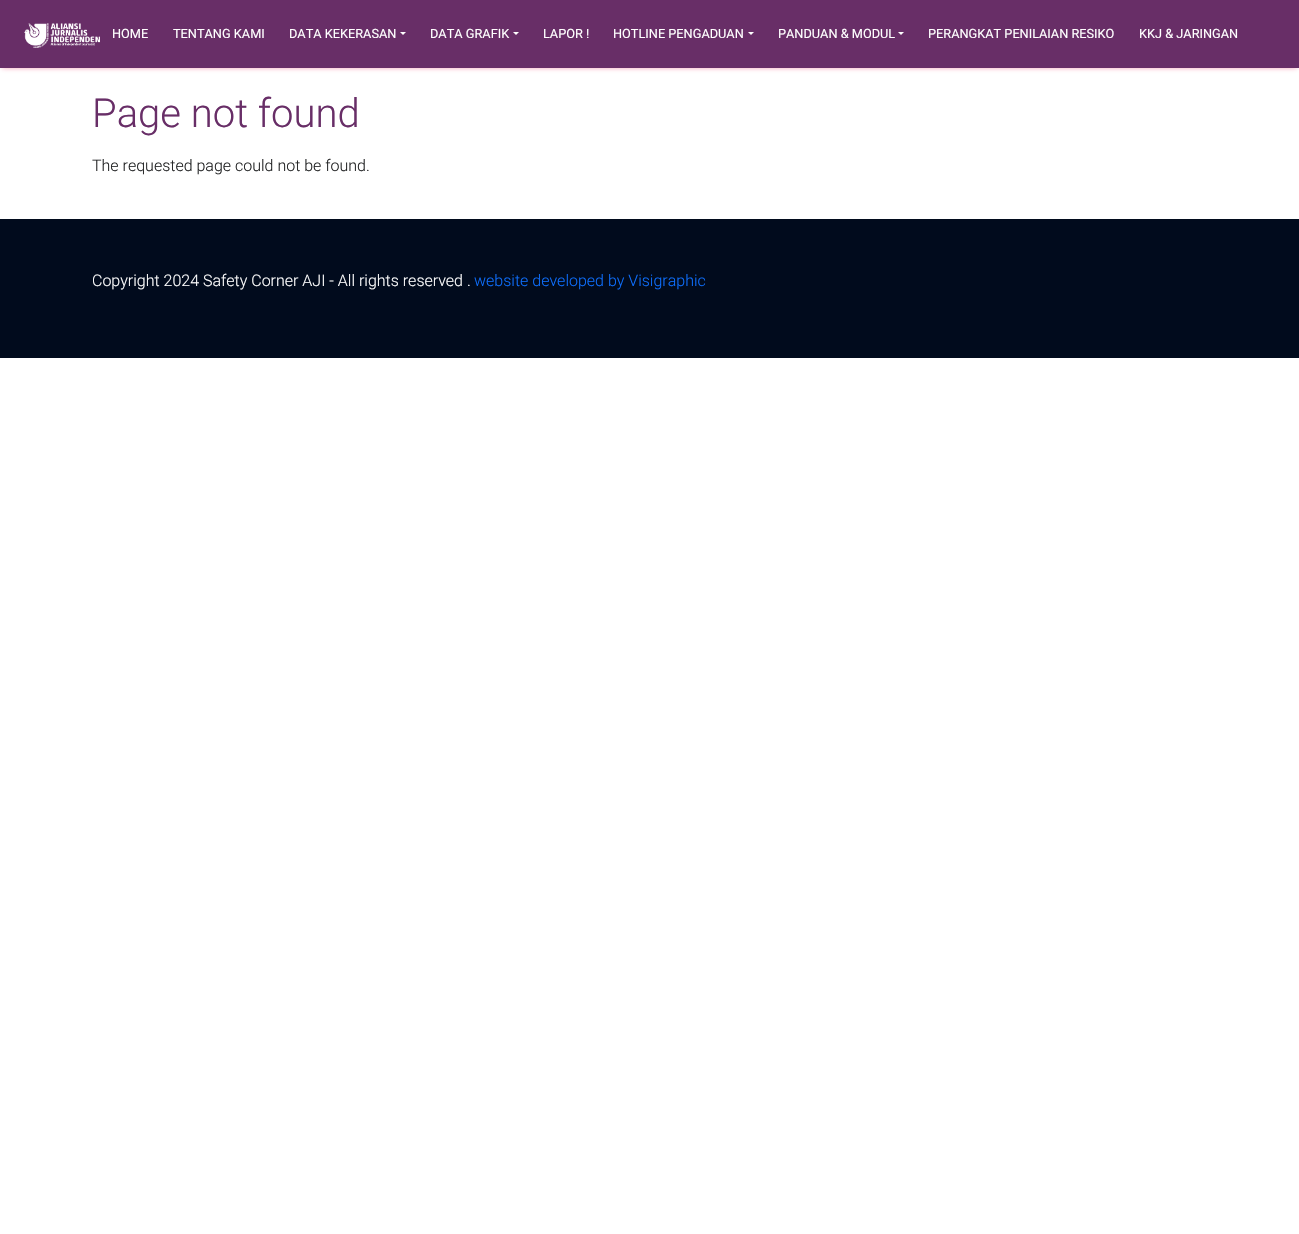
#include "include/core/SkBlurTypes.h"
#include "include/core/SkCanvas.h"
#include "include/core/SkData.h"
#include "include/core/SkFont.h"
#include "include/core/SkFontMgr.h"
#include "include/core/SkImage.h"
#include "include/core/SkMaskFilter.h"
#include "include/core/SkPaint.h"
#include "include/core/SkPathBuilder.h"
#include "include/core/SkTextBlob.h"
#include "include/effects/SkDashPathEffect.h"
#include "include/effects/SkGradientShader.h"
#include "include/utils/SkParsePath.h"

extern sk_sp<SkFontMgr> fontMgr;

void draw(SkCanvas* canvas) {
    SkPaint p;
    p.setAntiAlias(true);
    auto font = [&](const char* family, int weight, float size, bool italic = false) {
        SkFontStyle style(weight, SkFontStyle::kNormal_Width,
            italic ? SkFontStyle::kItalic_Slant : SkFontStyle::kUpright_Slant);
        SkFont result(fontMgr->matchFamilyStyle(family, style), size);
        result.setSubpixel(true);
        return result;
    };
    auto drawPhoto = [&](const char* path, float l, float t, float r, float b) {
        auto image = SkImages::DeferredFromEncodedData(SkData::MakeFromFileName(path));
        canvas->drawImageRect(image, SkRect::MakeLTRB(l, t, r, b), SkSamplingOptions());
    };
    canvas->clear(0xFFFFFFFF);
    p.setColor(0x80F34573);
    p.setMaskFilter(SkMaskFilter::MakeBlur(kNormal_SkBlurStyle, 2.5f));
    canvas->drawRect(SkRect::MakeLTRB(2, 4, 1297, 68), p);
    p.setMaskFilter(nullptr);
    p.setColor(0xFF682E67);
    canvas->drawRect(SkRect::MakeLTRB(0, 0, 1299, 68), p);
    drawPhoto("media/1.png", 24, 23, 100, 48);
    auto font1 = font("Roboto", 400, 12.75f);
    p.setColor(0xFFFFFFFF);
    {
        const struct { const char* s; float x, y; } items[] = {
            {"HOME", 112, 38},
            {"TENTANG KAMI", 173, 38},
            {"DATA KEKERASAN", 289, 38},
        };
        for (auto [s, x, y] : items) {
            canvas->drawString(s, x, y, font1, p);
        }
    }
    canvas->drawPath(SkPathBuilder().moveTo(400, 32).lineTo(406, 32).lineTo(403, 35).close().detach(), p);
    canvas->drawString("DATA GRAFIK", 430, 38, font1, p);
    canvas->drawPath(SkPathBuilder().moveTo(513, 32).lineTo(519, 32).lineTo(516, 35).close().detach(), p);
    canvas->drawString("LAPOR !", 543, 38, font1, p);
    canvas->drawString("HOTLINE PENGADUAN", 613, 38, font1, p);
    canvas->drawPath(SkPathBuilder().moveTo(748, 32).lineTo(754, 32).lineTo(751, 35).close().detach(), p);
    canvas->drawString("PANDUAN & MODUL", 778, 38, font1, p);
    canvas->drawPath(SkPathBuilder().moveTo(898, 32).lineTo(904, 32).lineTo(901, 35).close().detach(), p);
    canvas->drawString("PERANGKAT PENILAIAN RESIKO", 928, 38, font1, p);
    canvas->drawString("KKJ & JARINGAN", 1139, 38, font1, p);
    auto font2 = font("Roboto", 300, 40);
    p.setColor(0xFF682E67);
    canvas->drawString("Page not found", 92, 127, font2, p);
    auto font3 = font("Roboto", 300, 16);
    p.setColor(0xFF222324);
    canvas->drawString("The requested page could not be found.", 92, 171, font3, p);
    p.setColor(0xFF010B1D);
    canvas->drawRect(SkRect::MakeLTRB(0, 219, 1299, 358), p);
    p.setColor(0xFFFFFFFF);
    canvas->drawString("Copyright 2024 Safety Corner AJI - All rights reserved .", 92, 286, font3, p);
    p.setColor(0xFF0D6EFD);
    canvas->drawString("website developed by Visigraphic", 474, 286, font3, p);
}
